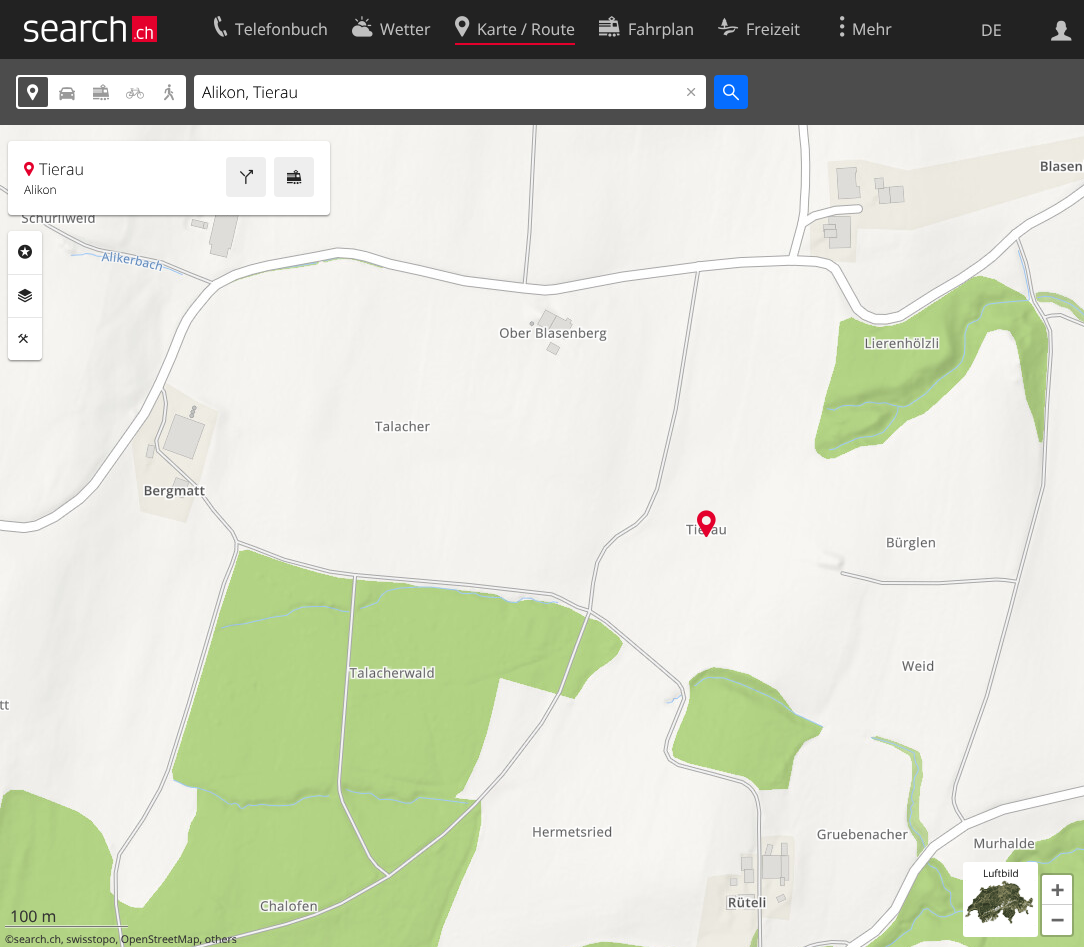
#include "include/core/SkBlurTypes.h"
#include "include/core/SkCanvas.h"
#include "include/core/SkData.h"
#include "include/core/SkFont.h"
#include "include/core/SkFontMgr.h"
#include "include/core/SkImage.h"
#include "include/core/SkMaskFilter.h"
#include "include/core/SkPaint.h"
#include "include/core/SkPathBuilder.h"
#include "include/core/SkTextBlob.h"
#include "include/effects/SkDashPathEffect.h"
#include "include/effects/SkGradientShader.h"
#include "include/utils/SkParsePath.h"

extern sk_sp<SkFontMgr> fontMgr;

void draw(SkCanvas* canvas) {
    SkPaint p;
    p.setAntiAlias(true);
    auto font = [&](const char* family, int weight, float size, bool italic = false) {
        SkFontStyle style(weight, SkFontStyle::kNormal_Width,
            italic ? SkFontStyle::kItalic_Slant : SkFontStyle::kUpright_Slant);
        SkFont result(fontMgr->matchFamilyStyle(family, style), size);
        result.setSubpixel(true);
        return result;
    };
    auto drawPhoto = [&](const char* path, float l, float t, float r, float b) {
        auto image = SkImages::DeferredFromEncodedData(SkData::MakeFromFileName(path));
        canvas->drawImageRect(image, SkRect::MakeLTRB(l, t, r, b), SkSamplingOptions());
    };
    canvas->clear(0xFFFFFFFF);
    p.setColor(0xFF222222);
    canvas->drawRect(SkRect::MakeLTRB(0, 0, 1084, 59), p);
    drawPhoto("media/1.png", 24, 16, 157, 42);
    drawPhoto("media/2.png", 214, 16, 228, 37);
    auto font1 = font("Open Sans", 400, 16);
    p.setColor(0xFFBFBFBF);
    canvas->drawString("Telefonbuch", 235, 35, font1, p);
    drawPhoto("media/3.png", 352, 16, 373, 37);
    canvas->drawString("Wetter", 380, 35, font1, p);
    p.setColor(0xFFE4002C);
    canvas->drawRect(SkRect::MakeLTRB(455, 43, 575, 45), p);
    drawPhoto("media/4.png", 455, 16, 470, 37);
    p.setColor(0xFFBFBFBF);
    canvas->drawString("Karte / Route", 477, 35, font1, p);
    drawPhoto("media/5.png", 599, 16, 620, 37);
    canvas->drawString("Fahrplan", 628, 35, font1, p);
    drawPhoto("media/6.png", 718, 17, 739, 36);
    canvas->drawString("Freizeit", 746, 35, font1, p);
    drawPhoto("media/7.png", 840, 16, 845, 37);
    canvas->drawString("Mehr", 852, 35, font1, p);
    canvas->drawString("DE", 981, 36, font1, p);
    drawPhoto("media/8.png", 1051, 20, 1072, 41);
    p.setColor(0xFF4C4C4C);
    canvas->drawRect(SkRect::MakeLTRB(0, 59, 1084, 125), p);
    p.setColor(0xFFFFFFFF);
    canvas->drawRoundRect(SkRect::MakeLTRB(16, 75, 186, 109), 4, 4, p);
    p.setColor(0xFF4C4C4C);
    canvas->drawRoundRect(SkRect::MakeLTRB(17, 76, 49, 108), 3, 3, p);
    p.setStyle(SkPaint::kStroke_Style);
    p.setStrokeWidth(2);
    p.setColor(0xFFFFFFFF);
    canvas->drawRoundRect(SkRect::MakeLTRB(17, 76, 49, 108), 3, 3, p);
    drawPhoto("media/9.png", 27, 84, 39, 101);
    drawPhoto("media/10.png", 59, 87, 75, 101);
    drawPhoto("media/11.png", 93, 84, 110, 101);
    drawPhoto("media/12.png", 126, 87, 144, 99);
    drawPhoto("media/13.png", 164, 84, 174, 101);
    p.setStyle(SkPaint::kFill_Style);
    canvas->drawRoundRect(SkRect::MakeLTRB(194, 75, 706, 109), 4, 4, p);
    auto font2 = font("Open Sans", 300, 16);
    p.setColor(0xFF000000);
    canvas->drawString("Alikon, Tierau", 202, 98, font2, p);
    drawPhoto("media/14.png", 687, 88, 696, 96);
    p.setColor(0xFF056DFF);
    canvas->drawRoundRect(SkRect::MakeLTRB(714, 75, 748, 109), 4, 4, p);
    drawPhoto("media/15.png", 723, 84, 739, 101);
    drawPhoto("media/23.png", 0, 125, 152, 201);
    drawPhoto("media/24.png", 152, 125, 664, 201);
    drawPhoto("media/26.png", 0, 201, 152, 713);
    drawPhoto("media/27.png", 152, 201, 664, 713);
    drawPhoto("media/33.png", 0, 215, 152, 711);
    canvas->save();
    canvas->clipPath(SkPathBuilder(SkPathFillType::kEvenOdd).moveTo(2, 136).lineTo(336, 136).lineTo(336, 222).lineTo(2, 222).close().moveTo(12, 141).lineTo(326, 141).cubicTo(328, 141, 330, 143, 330, 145).lineTo(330, 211).cubicTo(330, 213, 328, 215, 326, 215).lineTo(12, 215).cubicTo(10, 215, 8, 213, 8, 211).lineTo(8, 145).cubicTo(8, 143, 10, 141, 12, 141).close().detach(), true);
    p.setColor(0x33000000);
    p.setMaskFilter(SkMaskFilter::MakeBlur(kNormal_SkBlurStyle, 1.5f));
    canvas->drawRoundRect(SkRect::MakeLTRB(8, 142, 330, 216), 4, 4, p);
    p.setMaskFilter(nullptr);
    canvas->restore();
    p.setColor(0x1F000000);
    p.setMaskFilter(SkMaskFilter::MakeBlur(kNormal_SkBlurStyle, 0.5f));
    canvas->drawRoundRect(SkRect::MakeLTRB(8, 143, 330, 217), 4, 4, p);
    p.setMaskFilter(nullptr);
    p.setColor(0x24000000);
    p.setMaskFilter(SkMaskFilter::MakeBlur(kNormal_SkBlurStyle, 0.5f));
    canvas->drawRoundRect(SkRect::MakeLTRB(8, 142, 330, 216), 4, 4, p);
    p.setMaskFilter(nullptr);
    p.setColor(0xFFFFFFFF);
    canvas->drawRoundRect(SkRect::MakeLTRB(8, 141, 330, 215), 4, 4, p);
    drawPhoto("media/16.png", 24, 161, 34, 177);
    p.setColor(0xFF222222);
    canvas->drawString("Tierau", 39, 175, font2, p);
    p.setColor(0xFFEEEEEE);
    canvas->drawRoundRect(SkRect::MakeLTRB(226, 157, 266, 197), 4, 4, p);
    drawPhoto("media/17.png", 240, 169, 253, 185);
    canvas->drawRoundRect(SkRect::MakeLTRB(274, 157, 314, 197), 4, 4, p);
    drawPhoto("media/18.png", 287, 169, 302, 185);
    auto font3 = font("Open Sans", 300, 12);
    p.setColor(0xFF111111);
    canvas->drawString("Alikon", 24, 194, font3, p);
    canvas->save();
    canvas->clipPath(SkPathBuilder(SkPathFillType::kEvenOdd).moveTo(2, 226).lineTo(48, 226).lineTo(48, 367).lineTo(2, 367).close().moveTo(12, 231).lineTo(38, 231).cubicTo(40, 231, 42, 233, 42, 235).lineTo(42, 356).cubicTo(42, 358, 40, 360, 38, 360).lineTo(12, 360).cubicTo(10, 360, 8, 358, 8, 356).lineTo(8, 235).cubicTo(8, 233, 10, 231, 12, 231).close().detach(), true);
    p.setColor(0x33000000);
    p.setMaskFilter(SkMaskFilter::MakeBlur(kNormal_SkBlurStyle, 1.5f));
    canvas->drawRoundRect(SkRect::MakeLTRB(8, 232, 42, 361), 4, 4, p);
    p.setMaskFilter(nullptr);
    canvas->restore();
    p.setColor(0x1F000000);
    p.setMaskFilter(SkMaskFilter::MakeBlur(kNormal_SkBlurStyle, 0.5f));
    canvas->drawRoundRect(SkRect::MakeLTRB(8, 233, 42, 362), 4, 4, p);
    p.setMaskFilter(nullptr);
    p.setColor(0x24000000);
    p.setMaskFilter(SkMaskFilter::MakeBlur(kNormal_SkBlurStyle, 0.5f));
    canvas->drawRoundRect(SkRect::MakeLTRB(8, 232, 42, 361), 4, 4, p);
    p.setMaskFilter(nullptr);
    p.setColor(0xFFFFFFFF);
    canvas->drawRoundRect(SkRect::MakeLTRB(8, 231, 42, 360), 4, 4, p);
    canvas->save();
    canvas->clipPath(SkPathBuilder().moveTo(11, 231).lineTo(39, 231).cubicTo(40.5f, 231, 42, 232.5f, 42, 234).lineTo(42, 357).cubicTo(42, 358.5f, 40.5f, 360, 39, 360).lineTo(11, 360).cubicTo(9.5f, 360, 8, 358.5f, 8, 357).lineTo(8, 234).cubicTo(8, 232.5f, 9.5f, 231, 11, 231).close().detach(), true);
    canvas->drawPath(SkPathBuilder().moveTo(12, 231).lineTo(38, 231).cubicTo(40, 231, 42, 233, 42, 235).lineTo(42, 275).lineTo(8, 275).lineTo(8, 235).cubicTo(8, 233, 10, 231, 12, 231).close().detach(), p);
    canvas->restore();
    p.setColor(0xFFE6E6E6);
    canvas->drawRect(SkRect::MakeLTRB(8, 274, 42, 275), p);
    drawPhoto("media/19.png", 18, 244, 32, 259);
    canvas->drawRect(SkRect::MakeLTRB(8, 317, 42, 318), p);
    drawPhoto("media/20.png", 18, 288, 32, 303);
    canvas->save();
    canvas->clipPath(SkPathBuilder().moveTo(11, 231).lineTo(39, 231).cubicTo(40.5f, 231, 42, 232.5f, 42, 234).lineTo(42, 357).cubicTo(42, 358.5f, 40.5f, 360, 39, 360).lineTo(11, 360).cubicTo(9.5f, 360, 8, 358.5f, 8, 357).lineTo(8, 234).cubicTo(8, 232.5f, 9.5f, 231, 11, 231).close().detach(), true);
    p.setColor(0xFFFFFFFF);
    canvas->drawPath(SkPathBuilder().moveTo(8, 318).lineTo(42, 318).lineTo(42, 356).cubicTo(42, 358, 40, 360, 38, 360).lineTo(12, 360).cubicTo(10, 360, 8, 358, 8, 356).close().detach(), p);
    canvas->restore();
    drawPhoto("media/21.png", 18, 333, 28, 344);
    drawPhoto("media/31.png", 664, 713, 1084, 947);
    drawPhoto("media/37.png", 727, 828, 1036, 909);
    canvas->drawRoundRect(SkRect::MakeLTRB(963, 862, 1038, 937), 3, 3, p);
    drawPhoto("media/22.png", 965, 880, 1036, 926);
    auto font4 = font("Open Sans", 400, 10);
    p.setColor(0xFF222222);
    canvas->drawString("Luftbild", 983, 877, font4, p);
    drawPhoto("media/25.png", 664, 125, 1084, 201);
    drawPhoto("media/28.png", 664, 201, 1084, 713);
    drawPhoto("media/29.png", 0, 713, 152, 947);
    drawPhoto("media/30.png", 152, 713, 664, 947);
    drawPhoto("media/32.png", 1039, 159, 1084, 173);
    drawPhoto("media/34.png", 152, 259, 608, 680);
    drawPhoto("media/35.png", 684, 336, 940, 673);
    drawPhoto("media/36.png", 258, 825, 613, 913);
    drawPhoto("media/38.png", 697, 510, 716, 538);
    p.setStyle(SkPaint::kStroke_Style);
    p.setColor(0x33000000);
    canvas->drawRoundRect(SkRect::MakeLTRB(1041, 874, 1073, 936), 3, 3, p);
    p.setStyle(SkPaint::kFill_Style);
    p.setColor(0xFFFFFFFF);
    canvas->drawPath(SkPathBuilder().moveTo(1044, 875).lineTo(1070, 875).cubicTo(1071, 875, 1072, 876, 1072, 877).lineTo(1072, 905).lineTo(1042, 905).lineTo(1042, 877).cubicTo(1042, 876, 1043, 875, 1044, 875).close().detach(), p);
    p.setColor(0xFFCCCCCC);
    canvas->drawRect(SkRect::MakeLTRB(1042, 904, 1072, 905), p);
    auto font5 = font("DejaVu Sans Mono", 700, 22);
    p.setColor(0xFF666666);
    canvas->drawString("+", 1051, 897, font5, p);
    p.setColor(0xFFFFFFFF);
    canvas->drawPath(SkPathBuilder().moveTo(1042, 905).lineTo(1072, 905).lineTo(1072, 933).cubicTo(1072, 934, 1071, 935, 1070, 935).lineTo(1044, 935).cubicTo(1043, 935, 1042, 934, 1042, 933).close().detach(), p);
    p.setColor(0xFF666666);
    canvas->drawString("−", 1051, 927, font5, p);
    {
        const struct { float l, t, r, b; SkColor color; } items[] = {
            {5, 927, 128, 928, 0x80FFFFFF},
            {5, 925, 128, 926, 0x80FFFFFF},
            {5, 926, 128, 927, 0xFF777777},
        };
        for (auto [l, t, r, b, color] : items) {
            p.setColor(color);
            canvas->drawRect(SkRect::MakeLTRB(l, t, r, b), p);
        }
    }
    p.setColor(0xFF333333);
    canvas->drawString("100 m", 10, 922, font1, p);
    auto font6 = font("Open Sans", 400, 10.6f);
    canvas->drawString("©search.ch, swisstopo, OpenStreetMap, others", 5, 943, font6, p);
}
